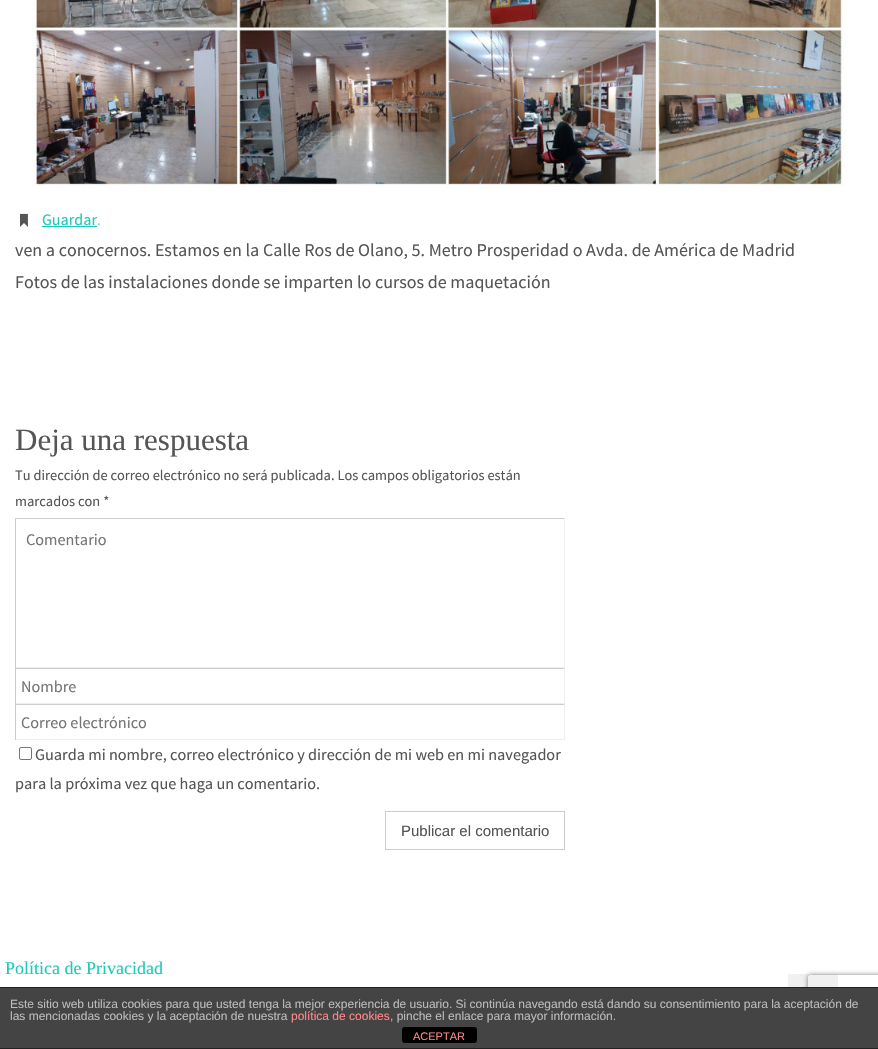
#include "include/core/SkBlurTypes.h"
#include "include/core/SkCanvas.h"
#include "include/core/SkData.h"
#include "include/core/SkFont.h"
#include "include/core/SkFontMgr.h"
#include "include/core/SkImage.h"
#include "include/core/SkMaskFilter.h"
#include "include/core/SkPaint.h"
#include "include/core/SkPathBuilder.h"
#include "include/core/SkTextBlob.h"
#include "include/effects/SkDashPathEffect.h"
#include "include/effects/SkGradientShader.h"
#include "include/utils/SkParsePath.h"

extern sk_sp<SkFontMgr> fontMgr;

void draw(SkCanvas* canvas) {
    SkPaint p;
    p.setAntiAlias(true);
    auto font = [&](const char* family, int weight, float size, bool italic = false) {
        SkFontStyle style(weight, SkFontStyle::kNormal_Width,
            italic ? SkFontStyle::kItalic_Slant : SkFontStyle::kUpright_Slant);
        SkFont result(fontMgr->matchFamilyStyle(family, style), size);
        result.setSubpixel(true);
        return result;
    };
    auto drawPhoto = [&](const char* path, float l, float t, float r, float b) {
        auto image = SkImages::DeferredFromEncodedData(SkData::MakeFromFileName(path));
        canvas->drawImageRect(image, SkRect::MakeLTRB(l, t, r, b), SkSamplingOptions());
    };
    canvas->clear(0xFFFFFFFF);
    drawPhoto("media/1.png", 32, 0, 846, 187);
    drawPhoto("media/2.png", 20, 213, 28, 227);
    auto font1 = font("Source Sans Pro", 400, 16);
    p.setColor(0xFF1EC8BB);
    canvas->drawString("Guardar", 42, 225, font1, p);
    canvas->drawRect(SkRect::MakeLTRB(42, 226, 97, 227), p);
    p.setColor(0xFFC1C1C1);
    canvas->drawString(".", 97, 225, font1, p);
    auto font2 = font("Source Sans Pro", 400, 18);
    p.setColor(0xFF555555);
    canvas->drawString("ven a conocernos. Estamos en la Calle Ros de Olano, 5. Metro Prosperidad o Avda. de América de Madrid", 15, 256, font2, p);
    canvas->drawString("Fotos de las instalaciones donde se imparten lo cursos de maquetación", 15, 288, font2, p);
    auto font3 = font("Liberation Serif", 400, 31);
    canvas->drawString("Deja una respuesta", 15, 450, font3, p);
    auto font4 = font("Source Sans Pro", 400, 14.4f);
    canvas->drawString("Tu dirección de correo electrónico no será publicada. Los campos obligatorios están", 15, 480, font4, p);
    canvas->drawString("marcados con *", 15, 506, font4, p);
    {
        const struct { float l, t, r, b; SkColor color; } items[] = {
            {15, 518, 565, 519, 0xFFCCCCCC},
            {564, 518, 565, 668, 0xFFEEEEEE},
            {15, 667, 565, 668, 0xFFEEEEEE},
            {15, 518, 16, 668, 0xFFCCCCCC},
        };
        for (auto [l, t, r, b, color] : items) {
            p.setColor(color);
            canvas->drawRect(SkRect::MakeLTRB(l, t, r, b), p);
        }
    }
    auto font5 = font("Source Sans Pro", 400, 16.2f);
    p.setColor(0xFF757575);
    canvas->drawString("Comentario", 26, 545, font5, p);
    {
        const struct { float l, t, r, b; SkColor color; } items[] = {
            {15, 668, 565, 669, 0xFFCCCCCC},
            {564, 668, 565, 704, 0xFFEEEEEE},
            {15, 703, 565, 704, 0xFFEEEEEE},
            {15, 668, 16, 704, 0xFFCCCCCC},
        };
        for (auto [l, t, r, b, color] : items) {
            p.setColor(color);
            canvas->drawRect(SkRect::MakeLTRB(l, t, r, b), p);
        }
    }
    p.setColor(0xFF757575);
    canvas->drawString("Nombre", 21, 692, font5, p);
    {
        const struct { float l, t, r, b; SkColor color; } items[] = {
            {15, 704, 565, 705, 0xFFCCCCCC},
            {564, 704, 565, 740, 0xFFEEEEEE},
            {15, 739, 565, 740, 0xFFEEEEEE},
            {15, 704, 16, 740, 0xFFCCCCCC},
        };
        for (auto [l, t, r, b, color] : items) {
            p.setColor(color);
            canvas->drawRect(SkRect::MakeLTRB(l, t, r, b), p);
        }
    }
    p.setColor(0xFF757575);
    canvas->drawString("Correo electrónico", 21, 728, font5, p);
    p.setStyle(SkPaint::kStroke_Style);
    p.setStrokeWidth(1);
    p.setColor(0xFF767676);
    canvas->drawRoundRect(SkRect::MakeLTRB(19.5f, 747.5f, 31.5f, 759.5f), 1.5f, 1.5f, p);
    p.setStyle(SkPaint::kFill_Style);
    p.setColor(0xFF555555);
    canvas->drawString("Guarda mi nombre, correo electrónico y dirección de mi web en mi navegador", 35, 760, font5, p);
    canvas->drawString("para la próxima vez que haga un comentario.", 15, 789, font5, p);
    p.setStyle(SkPaint::kStroke_Style);
    p.setColor(0xFFCCCCCC);
    canvas->drawRect(SkRect::MakeLTRB(385.5f, 811.5f, 564.5f, 849.5f), p);
    auto font6 = font("Liberation Sans", 400, 15);
    p.setStyle(SkPaint::kFill_Style);
    p.setColor(0xFF555555);
    canvas->drawString("Publicar el comentario", 401, 836, font6, p);
    auto font7 = font("Liberation Serif", 400, 18);
    p.setColor(0xFF1EC8BB);
    canvas->drawString("Política de Privacidad", 5, 974, font7, p);
    canvas->save();
    canvas->clipPath(SkPathBuilder(SkPathFillType::kEvenOdd).moveTo(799, 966).lineTo(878, 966).lineTo(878, 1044).lineTo(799, 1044).close().moveTo(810, 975).lineTo(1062, 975).cubicTo(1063, 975, 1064, 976, 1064, 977).lineTo(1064, 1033).cubicTo(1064, 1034, 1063, 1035, 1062, 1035).lineTo(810, 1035).cubicTo(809, 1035, 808, 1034, 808, 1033).lineTo(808, 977).cubicTo(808, 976, 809, 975, 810, 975).close().detach(), true);
    p.setColor(0xFF808080);
    p.setMaskFilter(SkMaskFilter::MakeBlur(kNormal_SkBlurStyle, 2.5f));
    canvas->drawRoundRect(SkRect::MakeLTRB(808, 975, 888, 1035), 2, 2, p);
    p.setMaskFilter(nullptr);
    canvas->restore();
    p.setColor(0x0F000000);
    canvas->drawRect(SkRect::MakeLTRB(788, 974, 838, 987), p);
    p.setStyle(SkPaint::kStroke_Style);
    p.setColor(0x1AFFFFFF);
    canvas->drawRect(SkRect::MakeLTRB(788.5f, 974.5f, 837.5f, 1028.5f), p);
    p.setStyle(SkPaint::kFill_Style);
    {
        const struct { float l, t, r, b; SkColor color; } items[] = {
            {0, 988, 878, 1048, 0xFF444444},
            {0, 987, 878, 988, 0xFF222222},
            {0, 1048, 878, 1049, 0xFF222222},
        };
        for (auto [l, t, r, b, color] : items) {
            p.setColor(color);
            canvas->drawRect(SkRect::MakeLTRB(l, t, r, b), p);
        }
    }
    auto font8 = font("Liberation Sans", 400, 12);
    p.setColor(0xFFBBBBBB);
    canvas->drawString("Este sitio web utiliza cookies para que usted tenga la mejor experiencia de usuario. Si continúa navegando está dando su consentimiento para la aceptación de", 10, 1008, font8, p);
    canvas->drawString("las mencionadas cookies y la aceptación de nuestra", 10, 1020, font8, p);
    p.setColor(0xFFFF8888);
    canvas->drawString("política de cookies", 291, 1020, font8, p);
    p.setColor(0xFFBBBBBB);
    canvas->drawString(", pinche el enlace para mayor información.", 390, 1020, font8, p);
    p.setColor(0xFF000000);
    canvas->drawRoundRect(SkRect::MakeLTRB(402, 1027, 477, 1043), 3, 3, p);
    auto font9 = font("Liberation Sans", 400, 11);
    p.setColor(0xFFFF8888);
    canvas->drawString("ACEPTAR", 413, 1040, font9, p);
}
